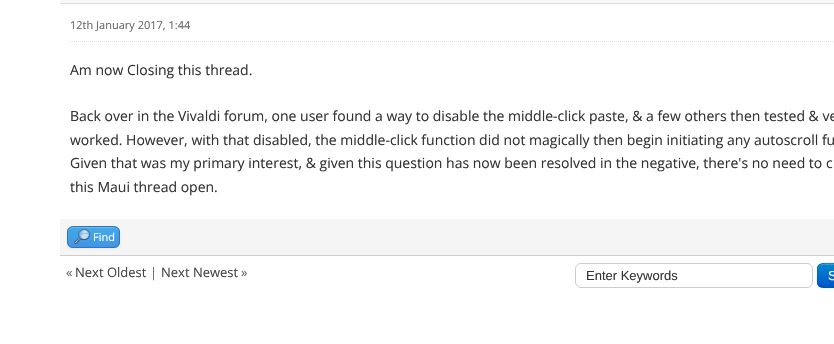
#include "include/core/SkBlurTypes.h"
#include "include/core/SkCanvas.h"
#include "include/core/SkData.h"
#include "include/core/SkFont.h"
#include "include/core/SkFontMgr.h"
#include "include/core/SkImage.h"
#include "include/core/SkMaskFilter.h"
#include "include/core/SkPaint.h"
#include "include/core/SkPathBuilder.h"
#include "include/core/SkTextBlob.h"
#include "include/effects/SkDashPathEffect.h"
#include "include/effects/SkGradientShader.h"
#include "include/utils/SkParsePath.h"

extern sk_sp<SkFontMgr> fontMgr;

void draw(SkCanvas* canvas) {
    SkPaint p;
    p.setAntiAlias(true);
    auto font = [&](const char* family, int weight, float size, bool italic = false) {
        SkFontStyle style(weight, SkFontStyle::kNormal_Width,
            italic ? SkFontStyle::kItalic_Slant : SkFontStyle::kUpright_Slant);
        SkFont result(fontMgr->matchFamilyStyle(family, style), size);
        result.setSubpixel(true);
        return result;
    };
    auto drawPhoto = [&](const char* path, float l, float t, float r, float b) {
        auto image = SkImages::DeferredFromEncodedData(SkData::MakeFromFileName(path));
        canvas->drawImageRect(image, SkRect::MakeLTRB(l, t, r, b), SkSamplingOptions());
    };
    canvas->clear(0xFFFFFFFF);
    p.setColor(0xFFF8F8F8);
    canvas->drawRect(SkRect::MakeLTRB(60, 0, 834, 3), p);
    p.setColor(0xFFDDDDDD);
    canvas->drawRect(SkRect::MakeLTRB(60, 3, 834, 4), p);
    p.setStyle(SkPaint::kStroke_Style);
    p.setStrokeWidth(1);
    p.setPathEffect(SkDashPathEffect::Make({{1, 1}}, 0));
    canvas->drawPath(SkPathBuilder().moveTo(70, 41.5f).lineTo(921, 41.5f).detach(), p);
    p.setPathEffect(nullptr);
    auto font1 = font("Open Sans", 400, 11);
    p.setStyle(SkPaint::kFill_Style);
    p.setColor(0xFF666666);
    canvas->drawString("12th January 2017, 1:44", 70, 29, font1, p);
    auto font2 = font("Open Sans", 400, 14);
    p.setColor(0xFF333333);
    {
        const struct { const char* s; float x, y; } items[] = {
            {"Am now Closing this thread.", 70, 75},
            {"Back over in the Vivaldi forum, one user found a way to disable the middle-click paste, & a few others then tested & ve", 70, 121},
            {"worked. However, with that disabled, the middle-click function did not magically then begin initiating any autoscroll fu", 70, 145},
            {"Given that was my primary interest, & given this question has now been resolved in the negative, there's no need to c", 70, 168},
            {"this Maui thread open.", 70, 192},
        };
        for (auto [s, x, y] : items) {
            canvas->drawString(s, x, y, font2, p);
        }
    }
    p.setColor(0xFFF5F5F5);
    canvas->drawRect(SkRect::MakeLTRB(60, 219, 834, 255), p);
    p.setColor(0xFFCCCCCC);
    canvas->drawRect(SkRect::MakeLTRB(60, 255, 834, 256), p);
    p.setColor(0x0D000000);
    p.setMaskFilter(SkMaskFilter::MakeBlur(kNormal_SkBlurStyle, 1));
    canvas->drawRoundRect(SkRect::MakeLTRB(67, 227, 120, 249), 6, 6, p);
    p.setMaskFilter(nullptr);
    drawPhoto("media/1.png", 67, 227, 120, 248);
    p.setColor(0xFF69B9ED);
    canvas->drawPath(SkPathBuilder().moveTo(73, 228).lineTo(114, 228).cubicTo(117, 228, 119, 230, 119, 233).cubicTo(119, 226, 113, 227, 107, 227).lineTo(80, 227).cubicTo(74, 227, 68, 226, 68, 233).cubicTo(68, 230, 70, 228, 73, 228).close().detach(), p);
    p.setStyle(SkPaint::kStroke_Style);
    p.setColor(0xFF3376AF);
    canvas->drawRoundRect(SkRect::MakeLTRB(67.5f, 226.5f, 119.5f, 247.5f), 5.5f, 5.5f, p);
    drawPhoto("media/2.png", 74, 229, 90, 244);
    p.setStyle(SkPaint::kFill_Style);
    p.setColor(0xFFFFFFFF);
    canvas->drawString("Find", 93, 241, font1, p);
    auto font3 = font("Open Sans", 400, 13);
    p.setColor(0xFF666666);
    canvas->drawString("«", 66, 277, font3, p);
    p.setColor(0xFF444444);
    canvas->drawString("Next Oldest", 75, 277, font3, p);
    p.setColor(0xFF666666);
    canvas->drawString("|", 150, 277, font3, p);
    p.setColor(0xFF444444);
    canvas->drawString("Next Newest", 161, 277, font3, p);
    p.setColor(0xFF666666);
    canvas->drawString("»", 241, 277, font3, p);
    p.setStyle(SkPaint::kStroke_Style);
    p.setColor(0xFFCCCCCC);
    canvas->drawRoundRect(SkRect::MakeLTRB(575.5f, 263.5f, 812.5f, 287.5f), 5.5f, 5.5f, p);
    auto font4 = font("Liberation Sans", 400, 13);
    p.setStyle(SkPaint::kFill_Style);
    p.setColor(0xFF333333);
    canvas->drawString("Enter Keywords", 586, 280, font4, p);
    p.setColor(0x0D000000);
    p.setMaskFilter(SkMaskFilter::MakeBlur(kNormal_SkBlurStyle, 1));
    canvas->drawRoundRect(SkRect::MakeLTRB(817, 264, 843, 289), 6, 6, p);
    p.setMaskFilter(nullptr);
    p.setColor(0xFF0074CC);
    canvas->drawRoundRect(SkRect::MakeLTRB(817, 263, 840, 288), 6, 6, p);
    canvas->save();
    canvas->clipPath(SkPathBuilder().moveTo(823, 263).lineTo(919, 263).cubicTo(922.5f, 263, 925, 265.5f, 925, 269).lineTo(925, 282).cubicTo(925, 285.5f, 922.5f, 288, 919, 288).lineTo(823, 288).cubicTo(819.5f, 288, 817, 285.5f, 817, 282).lineTo(817, 269).cubicTo(817, 265.5f, 819.5f, 263, 823, 263).close().detach(), true);
    {
        const SkColor colors[] = {0xFF0088CC, 0xFF0055CC};
        const float stops[] = {0, 1};
        const SkPoint ends[] = {{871, 264}, {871, 287}};
        p.setShader(SkGradientShader::MakeLinear(ends, colors, stops, 2, SkTileMode::kClamp));
        p.setAlpha(255);
    }
    canvas->drawRect(SkRect::MakeLTRB(817, 264, 834, 287), p);
    canvas->restore();
    p.setShader(nullptr);
    p.setColor(0x33FFFFFF);
    canvas->drawPath(SkPathBuilder().moveTo(823, 265).lineTo(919, 265).cubicTo(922, 265, 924, 267, 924, 270).cubicTo(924, 260, 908, 264, 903, 264).lineTo(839, 264).cubicTo(834, 264, 818, 260, 818, 270).cubicTo(818, 267, 820, 265, 823, 265).close().detach(), p);
    p.setStyle(SkPaint::kStroke_Style);
    p.setColor(0x40000000);
    canvas->drawPath(SkPathBuilder().moveTo(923, 286).lineTo(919.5f, 287.5f).lineTo(822.5f, 287.5f).lineTo(819, 286).detach(), p);
    p.setColor(0x1A000000);
    canvas->drawPath(SkPathBuilder().moveTo(819, 286).cubicTo(816, 283, 817.5f, 277, 817.5f, 273.5f).lineTo(817.5f, 267.5f).cubicTo(820, 260, 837, 263.5f, 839, 263.5f).lineTo(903, 263.5f).cubicTo(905, 263.5f, 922, 260, 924.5f, 267.5f).lineTo(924.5f, 273.5f).cubicTo(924.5f, 277, 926, 283, 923, 286).detach(), p);
    p.setStyle(SkPaint::kFill_Style);
    p.setColor(0xFFFFFFFF);
    canvas->drawString("S", 828, 280, font4, p);
}
